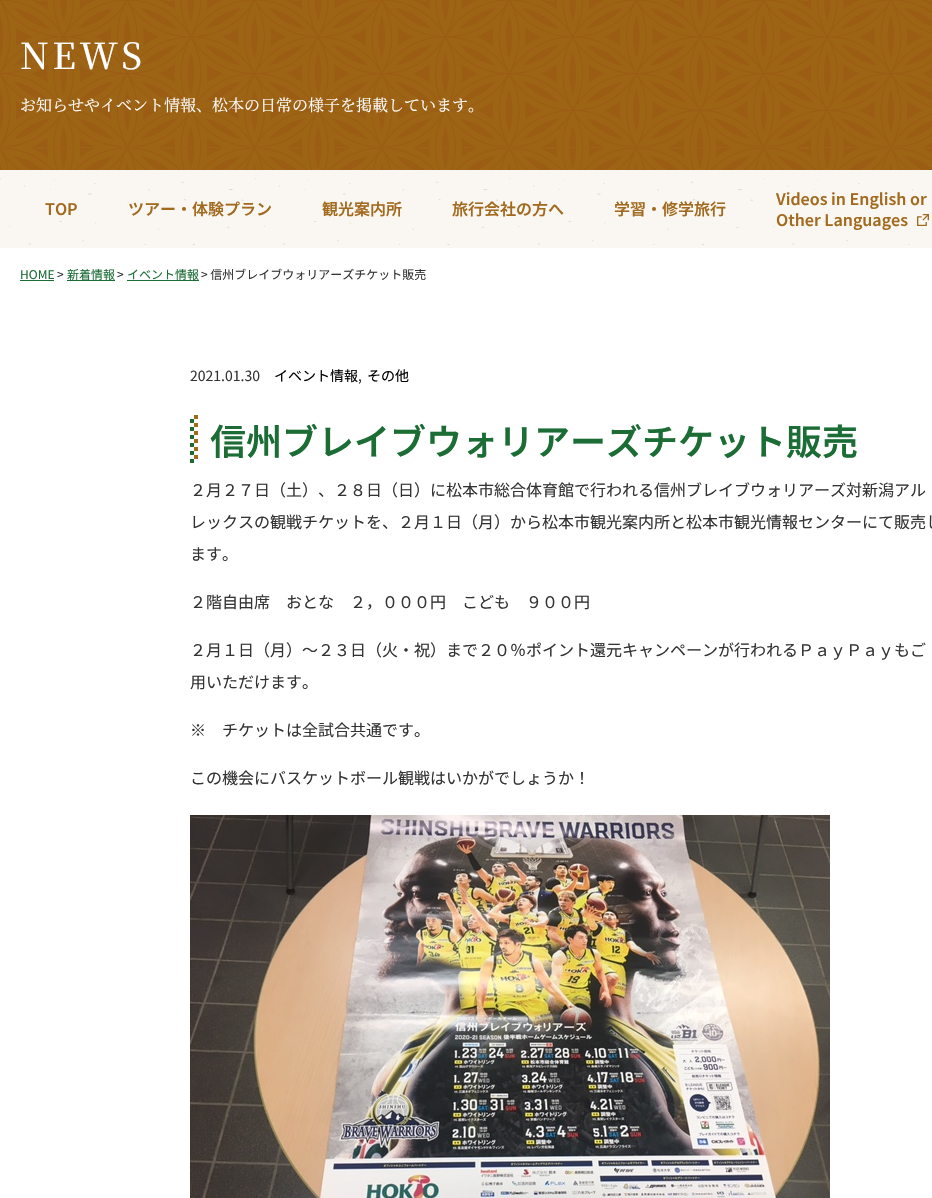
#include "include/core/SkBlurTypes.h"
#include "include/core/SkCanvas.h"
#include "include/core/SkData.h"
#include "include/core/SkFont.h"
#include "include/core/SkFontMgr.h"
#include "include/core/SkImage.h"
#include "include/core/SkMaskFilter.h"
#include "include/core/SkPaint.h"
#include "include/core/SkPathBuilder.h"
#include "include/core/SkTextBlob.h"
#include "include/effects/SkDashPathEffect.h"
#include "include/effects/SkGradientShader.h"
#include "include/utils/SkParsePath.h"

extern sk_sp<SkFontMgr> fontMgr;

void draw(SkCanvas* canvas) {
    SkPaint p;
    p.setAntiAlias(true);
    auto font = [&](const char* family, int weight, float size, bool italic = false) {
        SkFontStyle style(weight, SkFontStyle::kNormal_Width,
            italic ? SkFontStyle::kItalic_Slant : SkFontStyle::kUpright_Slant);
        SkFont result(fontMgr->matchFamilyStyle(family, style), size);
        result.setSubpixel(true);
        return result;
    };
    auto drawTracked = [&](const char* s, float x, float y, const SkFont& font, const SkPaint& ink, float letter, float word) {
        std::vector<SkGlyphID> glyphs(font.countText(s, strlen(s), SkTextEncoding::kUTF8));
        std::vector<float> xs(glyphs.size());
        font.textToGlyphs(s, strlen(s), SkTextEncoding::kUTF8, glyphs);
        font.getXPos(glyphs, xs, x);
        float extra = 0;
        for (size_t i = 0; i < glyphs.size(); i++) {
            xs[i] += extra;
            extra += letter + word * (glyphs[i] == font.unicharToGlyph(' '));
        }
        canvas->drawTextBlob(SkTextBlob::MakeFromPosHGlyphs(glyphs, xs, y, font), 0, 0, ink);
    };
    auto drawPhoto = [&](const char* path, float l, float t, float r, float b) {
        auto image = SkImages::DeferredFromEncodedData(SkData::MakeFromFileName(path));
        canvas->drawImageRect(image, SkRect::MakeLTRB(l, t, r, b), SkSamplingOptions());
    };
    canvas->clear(0xFFFFFFFF);
    drawPhoto("media/1.png", 0, 0, 932, 170);
    auto font1 = font("Noto Serif JP", 500, 36);
    p.setColor(0xFFFFFFFF);
    drawTracked("NEWS", 20, 69, font1, p, 3.5f, 0);
    auto font2 = font("Noto Serif JP", 400, 16);
    canvas->drawString("お知らせやイベント情報、松本の日常の様子を掲載しています。", 20, 111, font2, p);
    drawPhoto("media/2.png", 0, 170, 932, 248);
    auto font3 = font("Noto Sans JP", 600, 16);
    p.setColor(0xFFA26A1E);
    {
        const struct { const char* s; float x, y; } items[] = {
            {"TOP", 45, 215},
            {"ツアー・体験プラン", 128, 215},
            {"観光案内所", 322, 215},
            {"旅行会社の方へ", 452, 215},
            {"学習・修学旅行", 614, 215},
            {"Videos in English or", 776, 205},
            {"Other Languages", 776, 226},
        };
        for (auto [s, x, y] : items) {
            canvas->drawString(s, x, y, font3, p);
        }
    }
    drawPhoto("media/3.png", 917, 214, 929, 226);
    auto font4 = font("Noto Sans JP", 400, 12);
    p.setColor(0xFF1B6D35);
    canvas->drawString("HOME", 20, 279, font4, p);
    canvas->drawRect(SkRect::MakeLTRB(20, 280, 54, 281), p);
    p.setColor(0xFF333333);
    canvas->drawString(">", 57, 279, font4, p);
    p.setColor(0xFF1B6D35);
    canvas->drawString("新着情報", 67, 279, font4, p);
    canvas->drawRect(SkRect::MakeLTRB(67, 280, 115, 281), p);
    p.setColor(0xFF333333);
    canvas->drawString(">", 117, 279, font4, p);
    p.setColor(0xFF1B6D35);
    canvas->drawString("イベント情報", 127, 279, font4, p);
    canvas->drawRect(SkRect::MakeLTRB(127, 280, 199, 281), p);
    p.setColor(0xFF333333);
    canvas->drawString("> 信州ブレイブウォリアーズチケット販売", 201, 279, font4, p);
    auto font5 = font("Noto Sans JP", 400, 14);
    canvas->drawString("2021.01.30", 190, 381, font5, p);
    p.setColor(0xFF000000);
    canvas->drawString("イベント情報", 274, 381, font5, p);
    p.setColor(0xFF333333);
    canvas->drawString(",", 358, 381, font5, p);
    p.setColor(0xFF000000);
    canvas->drawString("その他", 367, 381, font5, p);
    drawPhoto("media/4.png", 190, 415, 198, 463);
    auto font6 = font("Noto Sans JP", 600, 36);
    p.setColor(0xFF1B6D35);
    canvas->drawString("信州ブレイブウォリアーズチケット販売", 210, 455, font6, p);
    auto font7 = font("Noto Sans JP", 400, 16);
    p.setColor(0xFF333333);
    {
        const struct { const char* s; float x, y; } items[] = {
            {"２月２７日（土）、２８日（日）に松本市総合体育館で行われる信州ブレイブウォリアーズ対新潟アル", 190, 496},
            {"レックスの観戦チケットを、２月１日（月）から松本市観光案内所と松本市観光情報センターにて販売し", 190, 528},
            {"ます。", 190, 560},
            {"２階自由席　おとな　２，０００円　こども　９００円", 190, 608},
            {"２月１日（月）～２３日（火・祝）まで２０％ポイント還元キャンペーンが行われるＰａｙＰａｙもご", 190, 656},
            {"用いただけます。", 190, 688},
            {"※　チケットは全試合共通です。", 190, 736},
            {"この機会にバスケットボール観戦はいかがでしょうか！", 190, 784},
        };
        for (auto [s, x, y] : items) {
            canvas->drawString(s, x, y, font7, p);
        }
    }
    drawPhoto("media/5.png", 190, 815, 830, 1198);
}
